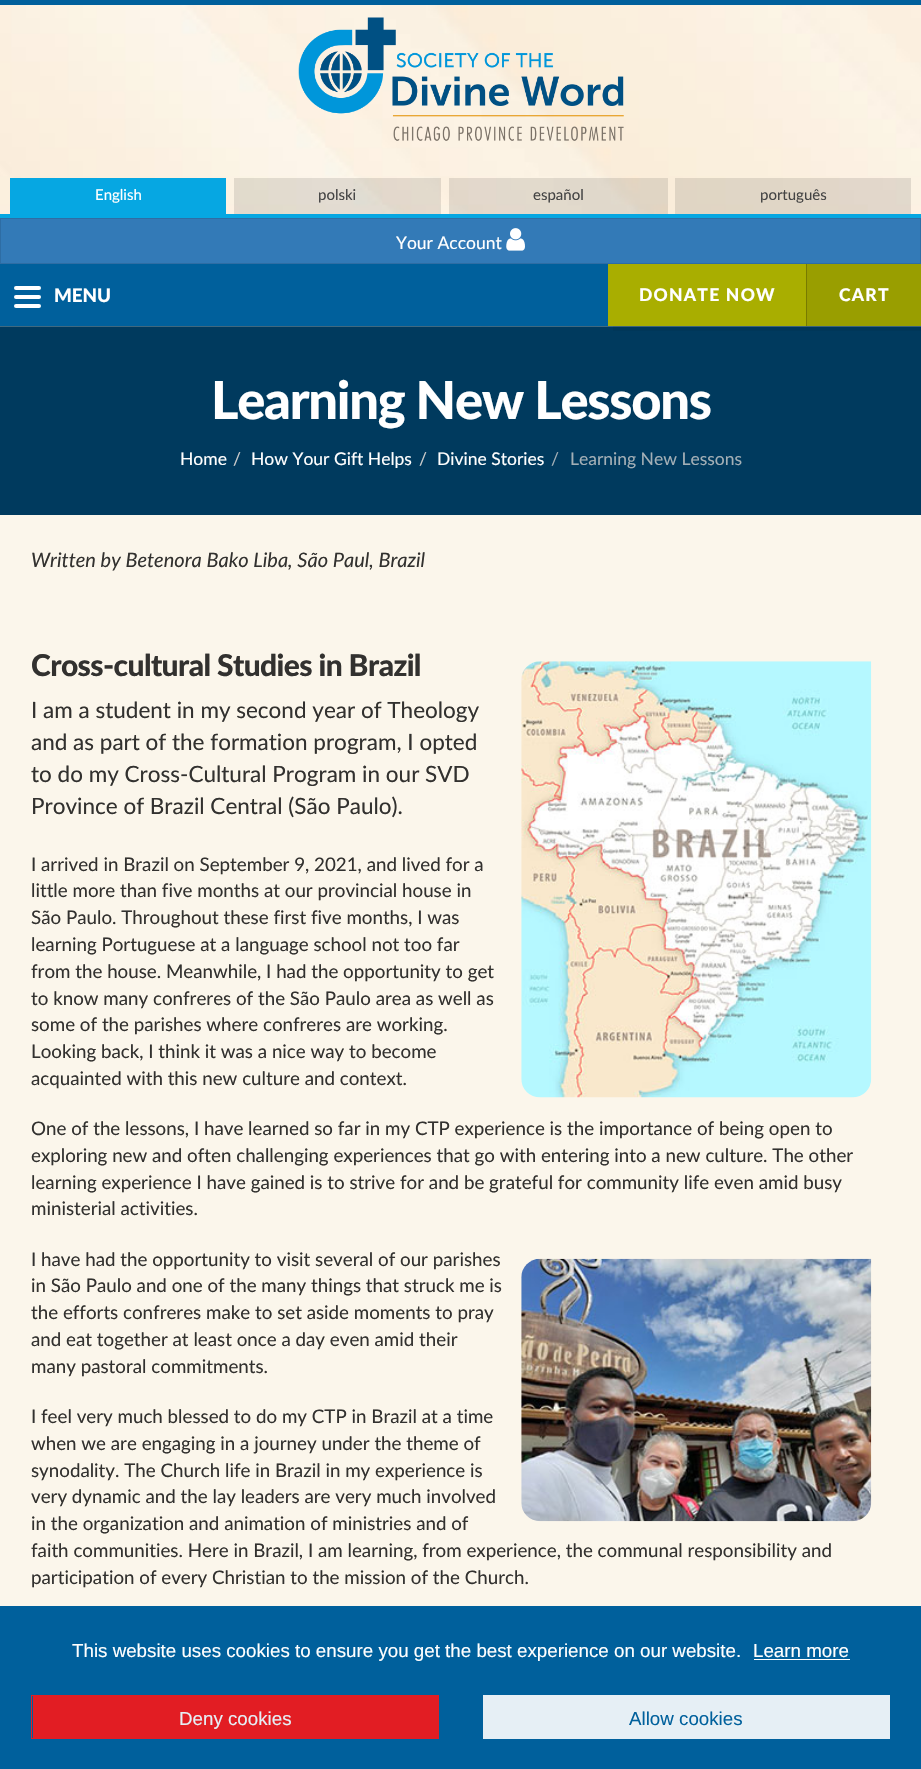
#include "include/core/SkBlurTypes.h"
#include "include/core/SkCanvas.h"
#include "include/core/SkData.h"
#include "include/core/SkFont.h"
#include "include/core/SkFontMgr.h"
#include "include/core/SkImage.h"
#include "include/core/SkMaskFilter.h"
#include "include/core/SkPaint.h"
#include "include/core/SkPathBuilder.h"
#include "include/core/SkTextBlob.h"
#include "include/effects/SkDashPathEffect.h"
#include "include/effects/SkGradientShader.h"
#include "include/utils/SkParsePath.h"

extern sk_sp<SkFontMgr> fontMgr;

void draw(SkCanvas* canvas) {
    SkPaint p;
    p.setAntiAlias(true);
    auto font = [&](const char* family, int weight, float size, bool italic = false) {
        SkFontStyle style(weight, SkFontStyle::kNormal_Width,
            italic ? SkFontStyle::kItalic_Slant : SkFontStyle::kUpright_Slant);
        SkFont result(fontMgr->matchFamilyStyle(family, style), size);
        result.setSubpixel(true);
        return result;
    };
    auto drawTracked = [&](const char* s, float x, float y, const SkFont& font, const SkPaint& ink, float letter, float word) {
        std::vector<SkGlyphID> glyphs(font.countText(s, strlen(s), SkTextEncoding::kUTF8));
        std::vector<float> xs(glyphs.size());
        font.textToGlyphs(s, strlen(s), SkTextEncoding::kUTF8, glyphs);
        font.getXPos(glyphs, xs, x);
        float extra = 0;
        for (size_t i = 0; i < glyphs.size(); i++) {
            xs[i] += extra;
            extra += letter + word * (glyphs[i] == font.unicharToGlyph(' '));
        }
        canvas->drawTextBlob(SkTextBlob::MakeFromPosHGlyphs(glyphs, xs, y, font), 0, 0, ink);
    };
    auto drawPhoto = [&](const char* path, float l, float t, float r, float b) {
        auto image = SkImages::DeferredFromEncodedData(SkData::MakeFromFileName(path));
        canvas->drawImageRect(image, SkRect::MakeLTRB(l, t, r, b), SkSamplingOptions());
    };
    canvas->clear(0xFFFBF6EB);
    p.setColor(0xFF003A5E);
    canvas->drawRect(SkRect::MakeLTRB(0, 326, 921, 515), p);
    drawPhoto("media/1.png", 0, 5, 921, 327);
    p.setColor(0xFF00609C);
    canvas->drawRect(SkRect::MakeLTRB(0, 0, 921, 5), p);
    drawPhoto("media/2.png", 298, 17, 624, 141);
    p.setColor(0xFF06A7E2);
    canvas->drawRect(SkRect::MakeLTRB(0, 214, 921, 218), p);
    canvas->drawRect(SkRect::MakeLTRB(10, 178, 226, 214), p);
    auto font1 = font("Lato", 400, 15);
    p.setColor(0xFFFFFFFF);
    canvas->drawString("English", 95, 200, font1, p);
    p.setColor(0x1A000000);
    canvas->drawRect(SkRect::MakeLTRB(234, 178, 441, 214), p);
    p.setColor(0xFF444444);
    canvas->drawString("polski", 318, 200, font1, p);
    p.setColor(0x1A000000);
    canvas->drawRect(SkRect::MakeLTRB(449, 178, 668, 214), p);
    p.setColor(0xFF444444);
    canvas->drawString("español", 533, 200, font1, p);
    p.setColor(0x1A000000);
    canvas->drawRect(SkRect::MakeLTRB(675, 178, 911, 214), p);
    p.setColor(0xFF444444);
    canvas->drawString("português", 760, 200, font1, p);
    p.setColor(0xFF337AB7);
    canvas->drawRect(SkRect::MakeLTRB(0.5f, 218.5f, 920.5f, 263.5f), p);
    p.setStyle(SkPaint::kStroke_Style);
    p.setStrokeWidth(1);
    p.setColor(0xFF2E6DA4);
    canvas->drawRect(SkRect::MakeLTRB(0.5f, 218.5f, 920.5f, 263.5f), p);
    auto font2 = font("Lato", 400, 17.5f);
    p.setStyle(SkPaint::kFill_Style);
    p.setColor(0xFFFFFFFF);
    canvas->drawString("Your Account", 396, 249, font2, p);
    drawPhoto("media/3.png", 506, 228, 525, 251);
    p.setColor(0xFF00609C);
    canvas->drawRect(SkRect::MakeLTRB(0, 264, 608, 326), p);
    p.setColor(0xFFFFFFFF);
    canvas->drawRoundRect(SkRect::MakeLTRB(14, 286, 41, 290), 2, 2, p);
    canvas->drawRoundRect(SkRect::MakeLTRB(14, 295, 41, 299), 2, 2, p);
    canvas->drawRoundRect(SkRect::MakeLTRB(14, 304, 41, 308), 2, 2, p);
    auto font3 = font("Lato", 900, 18.75f);
    canvas->drawString("MENU", 54, 302, font3, p);
    p.setColor(0x0D000000);
    canvas->drawPath(SkPathBuilder().moveTo(613, 326).lineTo(613, 331).lineTo(811, 331).lineTo(811, 269).lineTo(806, 269).lineTo(806, 326).close().detach(), p);
    p.setColor(0xFFA9AE00);
    canvas->drawRect(SkRect::MakeLTRB(608, 264, 806, 326), p);
    auto font4 = font("Lato", 900, 17.5f);
    p.setColor(0xFFFFFFFF);
    drawTracked("DONATE NOW", 639, 301, font4, p, 1.25f, 0);
    p.setColor(0x0D000000);
    canvas->drawPath(SkPathBuilder().moveTo(811, 326).lineTo(811, 331).lineTo(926, 331).lineTo(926, 269).lineTo(921, 269).lineTo(921, 326).close().detach(), p);
    p.setColor(0xFF999E00);
    canvas->drawRect(SkRect::MakeLTRB(807, 264, 921, 326), p);
    p.setColor(0xFF777B00);
    canvas->drawRect(SkRect::MakeLTRB(806, 264, 807, 326), p);
    p.setColor(0xFFFFFFFF);
    drawTracked("CART", 839, 301, font4, p, 1.25f, 0);
    auto font5 = font("Lato", 900, 52.5f);
    drawTracked("Learning New Lessons", 211, 419, font5, p, -1.25f, 0);
    canvas->drawString("Home", 180, 465, font2, p);
    p.setColor(0xFFCCCCCC);
    canvas->drawString("/", 233, 465, font2, p);
    p.setColor(0xFFFFFFFF);
    canvas->drawString("How Your Gift Helps", 251, 465, font2, p);
    p.setColor(0xFFCCCCCC);
    canvas->drawString("/", 419, 465, font2, p);
    p.setColor(0xFFFFFFFF);
    canvas->drawString("Divine Stories", 437, 465, font2, p);
    p.setColor(0xFFA3AFB6);
    canvas->drawString("/", 551, 465, font2, p);
    canvas->drawString("Learning New Lessons", 570, 465, font2, p);
    auto font6 = font("Lato", 400, 20, true);
    p.setColor(0xFF32312F);
    canvas->drawString("Written by Betenora Bako Liba, São Paul, Brazil", 31, 567, font6, p);
    auto font7 = font("Lato", 900, 30);
    drawTracked("Cross-cultural Studies in Brazil", 31, 676, font7, p, -0.6f, 0);
    drawPhoto("media/4.png", 521, 661, 872, 1098);
    auto font8 = font("Lato", 400, 22.5f);
    {
        const struct { const char* s; float x, y; } items[] = {
            {"I am a student in my second year of Theology", 31, 718},
            {"and as part of the formation program, I opted", 31, 750},
            {"to do my Cross-Cultural Program in our SVD", 31, 782},
            {"Province of Brazil Central (São Paulo).", 31, 814},
        };
        for (auto [s, x, y] : items) {
            canvas->drawString(s, x, y, font8, p);
        }
    }
    auto font9 = font("Lato", 400, 18.75f);
    {
        const struct { const char* s; float x, y; } items[] = {
            {"I arrived in Brazil on September 9, 2021, and lived for a", 31, 871},
            {"little more than five months at our provincial house in", 31, 897},
            {"São Paulo. Throughout these first five months, I was", 31, 924},
            {"learning Portuguese at a language school not too far", 31, 951},
            {"from the house. Meanwhile, I had the opportunity to get", 31, 978},
            {"to know many confreres of the São Paulo area as well as", 31, 1005},
            {"some of the parishes where confreres are working.", 31, 1031},
            {"Looking back, I think it was a nice way to become", 31, 1058},
            {"acquainted with this new culture and context.", 31, 1085},
            {"One of the lessons, I have learned so far in my CTP experience is the importance of being open to", 31, 1135},
            {"exploring new and often challenging experiences that go with entering into a new culture. The other", 31, 1162},
            {"learning experience I have gained is to strive for and be grateful for community life even amid busy", 31, 1189},
            {"ministerial activities.", 31, 1215},
            {"I have had the opportunity to visit several of our parishes", 31, 1266},
        };
        for (auto [s, x, y] : items) {
            canvas->drawString(s, x, y, font9, p);
        }
    }
    drawPhoto("media/5.png", 521, 1258, 872, 1522);
    {
        const struct { const char* s; float x, y; } items[] = {
            {"in São Paulo and one of the many things that struck me is", 31, 1292},
            {"the efforts confreres make to set aside moments to pray", 31, 1319},
            {"and eat together at least once a day even amid their", 31, 1346},
            {"many pastoral commitments.", 31, 1373},
            {"I feel very much blessed to do my CTP in Brazil at a time", 31, 1423},
            {"when we are engaging in a journey under the theme of", 31, 1450},
            {"synodality. The Church life in Brazil in my experience is", 31, 1477},
            {"very dynamic and the lay leaders are very much involved", 31, 1503},
            {"in the organization and animation of ministries and of", 31, 1530},
            {"faith communities. Here in Brazil, I am learning, from experience, the communal responsibility and", 31, 1557},
            {"participation of every Christian to the mission of the Church.", 31, 1584},
        };
        for (auto [s, x, y] : items) {
            canvas->drawString(s, x, y, font9, p);
        }
    }
    p.setColor(0xFF00609C);
    canvas->drawRect(SkRect::MakeLTRB(0, 1606, 921, 1769), p);
    auto font10 = font("Liberation Sans", 400, 18.75f);
    p.setColor(0xFFFFFFFF);
    canvas->drawString("This website uses cookies to ensure you get the best experience on our website.", 72, 1657, font10, p);
    canvas->drawString("Learn more", 753, 1657, font10, p);
    canvas->drawRect(SkRect::MakeLTRB(754, 1659, 850, 1660), p);
    p.setColor(0xFFE21D23);
    canvas->drawRect(SkRect::MakeLTRB(33, 1696, 438, 1738), p);
    p.setStyle(SkPaint::kStroke_Style);
    canvas->drawRect(SkRect::MakeLTRB(31.5f, 1695.5f, 438.5f, 1738.5f), p);
    p.setStyle(SkPaint::kFill_Style);
    p.setColor(0xFFE6EFF5);
    canvas->drawString("Deny cookies", 179, 1725, font10, p);
    canvas->drawRect(SkRect::MakeLTRB(483.5f, 1695.5f, 889.5f, 1738.5f), p);
    p.setStyle(SkPaint::kStroke_Style);
    canvas->drawRect(SkRect::MakeLTRB(483.5f, 1695.5f, 889.5f, 1738.5f), p);
    p.setStyle(SkPaint::kFill_Style);
    p.setColor(0xFF00609C);
    canvas->drawString("Allow cookies", 629, 1725, font10, p);
}
